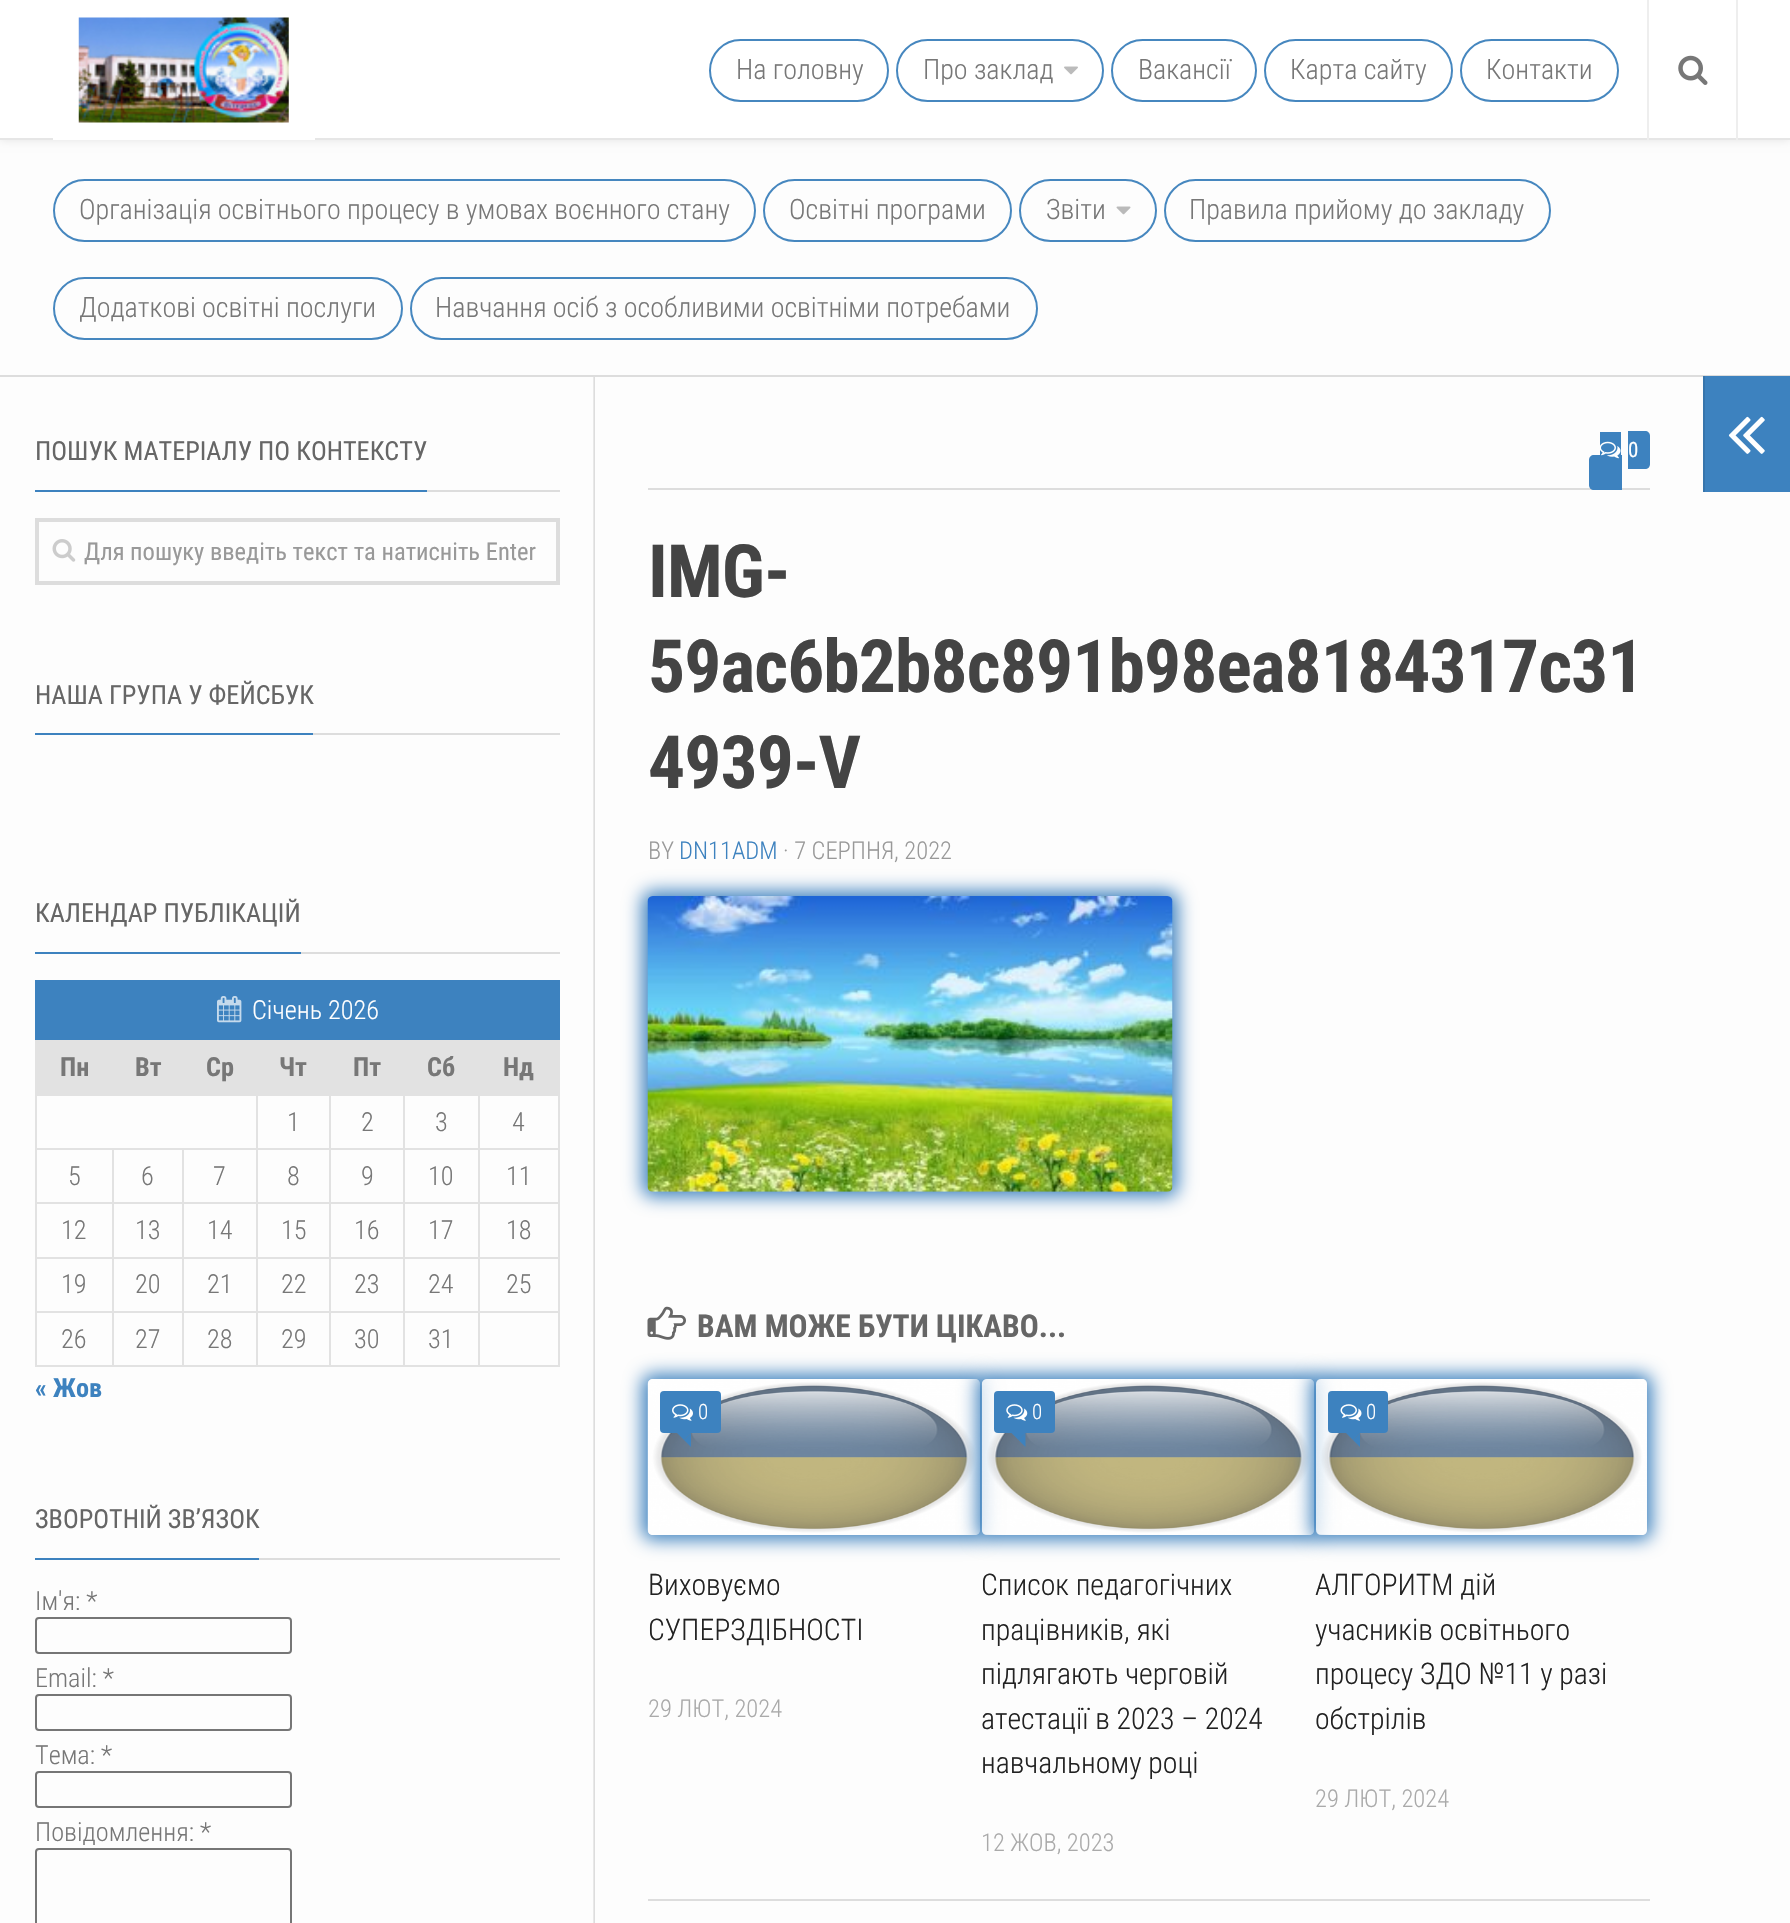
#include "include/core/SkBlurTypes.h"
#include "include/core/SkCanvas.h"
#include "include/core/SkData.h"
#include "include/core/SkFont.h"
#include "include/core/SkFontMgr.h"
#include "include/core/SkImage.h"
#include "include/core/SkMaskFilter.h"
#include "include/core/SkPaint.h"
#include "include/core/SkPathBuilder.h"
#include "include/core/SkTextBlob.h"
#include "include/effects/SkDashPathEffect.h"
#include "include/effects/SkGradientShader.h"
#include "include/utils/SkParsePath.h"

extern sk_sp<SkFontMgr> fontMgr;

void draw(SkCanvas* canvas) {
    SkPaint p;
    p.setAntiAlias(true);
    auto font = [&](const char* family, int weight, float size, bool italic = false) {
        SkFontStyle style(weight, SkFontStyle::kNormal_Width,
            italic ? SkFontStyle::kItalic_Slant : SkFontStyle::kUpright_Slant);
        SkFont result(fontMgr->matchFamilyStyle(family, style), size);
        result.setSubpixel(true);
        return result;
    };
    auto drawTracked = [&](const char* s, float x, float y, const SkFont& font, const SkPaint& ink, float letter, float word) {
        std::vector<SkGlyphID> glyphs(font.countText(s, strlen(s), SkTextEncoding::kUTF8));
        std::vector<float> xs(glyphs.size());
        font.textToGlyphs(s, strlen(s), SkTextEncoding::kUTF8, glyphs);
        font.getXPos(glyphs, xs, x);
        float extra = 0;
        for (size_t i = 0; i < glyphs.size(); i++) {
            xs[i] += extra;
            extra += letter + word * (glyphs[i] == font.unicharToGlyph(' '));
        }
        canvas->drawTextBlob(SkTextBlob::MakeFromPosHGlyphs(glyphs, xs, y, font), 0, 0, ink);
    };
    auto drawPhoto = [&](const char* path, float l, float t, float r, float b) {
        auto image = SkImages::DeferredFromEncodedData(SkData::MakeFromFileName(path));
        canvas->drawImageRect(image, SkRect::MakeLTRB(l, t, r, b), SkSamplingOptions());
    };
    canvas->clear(0xFFFDFDFD);
    p.setColor(0x1A000000);
    p.setMaskFilter(SkMaskFilter::MakeBlur(kNormal_SkBlurStyle, 4.5f));
    canvas->drawRect(SkRect::MakeLTRB(0, 0, 1790, 140), p);
    p.setMaskFilter(nullptr);
    {
        const struct { float l, t, r, b; SkColor color; } items[] = {
            {0, 0, 1790, 138, 0xFFFFFFFF},
            {0, 138, 1790, 140, 0xFFE6E6E6},
            {53, 138, 315, 140, 0xFFFFFFFF},
        };
        for (auto [l, t, r, b, color] : items) {
            p.setColor(color);
            canvas->drawRect(SkRect::MakeLTRB(l, t, r, b), p);
        }
    }
    drawPhoto("media/1.png", 78, 17, 289, 123);
    p.setStyle(SkPaint::kStroke_Style);
    p.setStrokeWidth(2);
    p.setColor(0xFF4687BF);
    canvas->drawRoundRect(SkRect::MakeLTRB(710, 40, 888, 101), 30.5f, 30.5f, p);
    auto font1 = font("Roboto Condensed", 300, 28);
    p.setStyle(SkPaint::kFill_Style);
    p.setColor(0xFF777777);
    canvas->drawString("На головну", 736, 79, font1, p);
    p.setStyle(SkPaint::kStroke_Style);
    p.setColor(0xFF4687BF);
    canvas->drawRoundRect(SkRect::MakeLTRB(897, 40, 1103, 101), 30.5f, 30.5f, p);
    p.setStyle(SkPaint::kFill_Style);
    p.setColor(0xFF777777);
    canvas->drawString("Про заклад", 923, 79, font1, p);
    drawPhoto("media/2.png", 1064, 66, 1078, 75);
    p.setStyle(SkPaint::kStroke_Style);
    p.setColor(0xFF4687BF);
    canvas->drawRoundRect(SkRect::MakeLTRB(1112, 40, 1256, 101), 30.5f, 30.5f, p);
    p.setStyle(SkPaint::kFill_Style);
    p.setColor(0xFF777777);
    canvas->drawString("Вакансії", 1138, 79, font1, p);
    p.setStyle(SkPaint::kStroke_Style);
    p.setColor(0xFF4687BF);
    canvas->drawRoundRect(SkRect::MakeLTRB(1265, 40, 1452, 101), 30.5f, 30.5f, p);
    p.setStyle(SkPaint::kFill_Style);
    p.setColor(0xFF777777);
    canvas->drawString("Карта сайту", 1290, 79, font1, p);
    p.setStyle(SkPaint::kStroke_Style);
    p.setColor(0xFF4687BF);
    canvas->drawRoundRect(SkRect::MakeLTRB(1461, 40, 1618, 101), 30.5f, 30.5f, p);
    p.setStyle(SkPaint::kFill_Style);
    p.setColor(0xFF777777);
    canvas->drawString("Контакти", 1486, 79, font1, p);
    p.setColor(0xFFEEEEEE);
    canvas->drawRect(SkRect::MakeLTRB(1736, 0, 1738, 140), p);
    canvas->drawRect(SkRect::MakeLTRB(1647, 0, 1649, 140), p);
    drawPhoto("media/3.png", 1678, 55, 1708, 85);
    p.setColor(0xFFDDDDDD);
    canvas->drawRect(SkRect::MakeLTRB(0, 375, 1790, 377), p);
    p.setStyle(SkPaint::kStroke_Style);
    p.setColor(0xFF4687BF);
    canvas->drawRoundRect(SkRect::MakeLTRB(54, 180, 755, 241), 30.5f, 30.5f, p);
    p.setStyle(SkPaint::kFill_Style);
    p.setColor(0xFF777777);
    canvas->drawString("Організація освітнього процесу в умовах воєнного стану", 79, 219, font1, p);
    p.setStyle(SkPaint::kStroke_Style);
    p.setColor(0xFF4687BF);
    canvas->drawRoundRect(SkRect::MakeLTRB(764, 180, 1011, 241), 30.5f, 30.5f, p);
    p.setStyle(SkPaint::kFill_Style);
    p.setColor(0xFF777777);
    canvas->drawString("Освітні програми", 789, 219, font1, p);
    p.setStyle(SkPaint::kStroke_Style);
    p.setColor(0xFF4687BF);
    canvas->drawRoundRect(SkRect::MakeLTRB(1020, 180, 1156, 241), 30.5f, 30.5f, p);
    p.setStyle(SkPaint::kFill_Style);
    p.setColor(0xFF777777);
    canvas->drawString("Звіти", 1046, 219, font1, p);
    drawPhoto("media/4.png", 1116, 206, 1131, 215);
    p.setStyle(SkPaint::kStroke_Style);
    p.setColor(0xFF4687BF);
    canvas->drawRoundRect(SkRect::MakeLTRB(1165, 180, 1550, 241), 30.5f, 30.5f, p);
    p.setStyle(SkPaint::kFill_Style);
    p.setColor(0xFF777777);
    canvas->drawString("Правила прийому до закладу", 1189, 219, font1, p);
    p.setStyle(SkPaint::kStroke_Style);
    p.setColor(0xFF4687BF);
    canvas->drawRoundRect(SkRect::MakeLTRB(54, 278, 402, 339), 30.5f, 30.5f, p);
    p.setStyle(SkPaint::kFill_Style);
    p.setColor(0xFF777777);
    canvas->drawString("Додаткові освітні послуги", 79, 317, font1, p);
    p.setStyle(SkPaint::kStroke_Style);
    p.setColor(0xFF4687BF);
    canvas->drawRoundRect(SkRect::MakeLTRB(411, 278, 1037, 339), 30.5f, 30.5f, p);
    p.setStyle(SkPaint::kFill_Style);
    p.setColor(0xFF777777);
    canvas->drawString("Навчання осіб з особливими освітніми потребами", 435, 317, font1, p);
    drawPhoto("media/5.png", 593, 377, 595, 1923);
    p.setColor(0xFFDDDDDD);
    canvas->drawRect(SkRect::MakeLTRB(427, 490, 560, 492), p);
    p.setColor(0xFF3D82BF);
    canvas->drawRect(SkRect::MakeLTRB(35, 490, 427, 492), p);
    auto font2 = font("Roboto Condensed", 400, 26.25f);
    p.setColor(0xFF666666);
    canvas->drawString("ПОШУК МАТЕРІАЛУ ПО КОНТЕКСТУ", 35, 460, font2, p);
    p.setStyle(SkPaint::kStroke_Style);
    p.setStrokeWidth(4);
    p.setColor(0xFFDDDDDD);
    canvas->drawRect(SkRect::MakeLTRB(37, 520, 558, 583), p);
    drawPhoto("media/6.png", 52, 539, 76, 562);
    auto font3 = font("Roboto Condensed", 400, 24.5f);
    p.setStyle(SkPaint::kFill_Style);
    p.setColor(0xFF999999);
    canvas->drawString("Для пошуку введіть текст та натисніть Enter", 84, 560, font3, p);
    p.setColor(0xFFDDDDDD);
    canvas->drawRect(SkRect::MakeLTRB(313, 733, 560, 735), p);
    p.setColor(0xFF3D82BF);
    canvas->drawRect(SkRect::MakeLTRB(35, 733, 313, 735), p);
    p.setColor(0xFF666666);
    canvas->drawString("НАША ГРУПА У ФЕЙСБУК", 35, 704, font2, p);
    p.setColor(0xFFDDDDDD);
    canvas->drawRect(SkRect::MakeLTRB(301, 952, 560, 954), p);
    p.setColor(0xFF3D82BF);
    canvas->drawRect(SkRect::MakeLTRB(35, 952, 301, 954), p);
    p.setColor(0xFF666666);
    canvas->drawString("КАЛЕНДАР ПУБЛІКАЦІЙ", 35, 922, font2, p);
    p.setColor(0xFF3D82BF);
    canvas->drawRect(SkRect::MakeLTRB(35, 980, 560, 1040), p);
    drawPhoto("media/7.png", 217, 996, 242, 1023);
    auto font4 = font("Roboto Condensed", 300, 26.25f);
    p.setColor(0xFFFFFFFF);
    canvas->drawString("Січень 2026", 252, 1019, font4, p);
    {
        const struct { float l, t, r, b; SkColor color; } items[] = {
            {37, 1042, 560, 1094, 0xFFE2E2E2},
            {35, 1040, 560, 1042, 0xFFE2E2E2},
            {478, 1094, 560, 1096, 0xFFE2E2E2},
            {478, 1148, 560, 1150, 0xFFE2E2E2},
            {478, 1202, 560, 1204, 0xFFE2E2E2},
            {478, 1257, 560, 1259, 0xFFE2E2E2},
            {478, 1311, 560, 1313, 0xFFE2E2E2},
            {558, 1311, 560, 1367, 0xFFE2E2E2},
            {478, 1365, 560, 1367, 0xFFE2E2E2},
            {478, 1311, 480, 1367, 0xFFE2E2E2},
            {403, 1311, 480, 1313, 0xFFE2E2E2},
            {478, 1257, 480, 1313, 0xFFE2E2E2},
            {403, 1257, 480, 1259, 0xFFE2E2E2},
            {478, 1202, 480, 1258, 0xFFE2E2E2},
            {403, 1202, 480, 1204, 0xFFE2E2E2},
            {478, 1148, 480, 1204, 0xFFE2E2E2},
            {403, 1148, 480, 1150, 0xFFE2E2E2},
            {478, 1094, 480, 1150, 0xFFE2E2E2},
            {403, 1094, 480, 1096, 0xFFE2E2E2},
            {403, 1365, 480, 1367, 0xFFE2E2E2},
            {403, 1311, 405, 1367, 0xFFE2E2E2},
            {329, 1311, 404, 1313, 0xFFE2E2E2},
            {403, 1257, 405, 1313, 0xFFE2E2E2},
            {329, 1257, 404, 1259, 0xFFE2E2E2},
            {403, 1202, 405, 1258, 0xFFE2E2E2},
            {329, 1202, 404, 1204, 0xFFE2E2E2},
            {403, 1148, 405, 1204, 0xFFE2E2E2},
            {329, 1148, 404, 1150, 0xFFE2E2E2},
            {403, 1094, 405, 1150, 0xFFE2E2E2},
            {329, 1094, 404, 1096, 0xFFE2E2E2},
            {329, 1365, 404, 1367, 0xFFE2E2E2},
            {329, 1311, 331, 1367, 0xFFE2E2E2},
            {256, 1311, 331, 1313, 0xFFE2E2E2},
            {329, 1257, 331, 1313, 0xFFE2E2E2},
            {256, 1257, 331, 1259, 0xFFE2E2E2},
            {329, 1202, 331, 1258, 0xFFE2E2E2},
            {256, 1202, 331, 1204, 0xFFE2E2E2},
            {329, 1148, 331, 1204, 0xFFE2E2E2},
            {256, 1148, 331, 1150, 0xFFE2E2E2},
            {329, 1094, 331, 1150, 0xFFE2E2E2},
            {256, 1094, 331, 1096, 0xFFE2E2E2},
            {256, 1365, 331, 1367, 0xFFE2E2E2},
            {256, 1311, 258, 1367, 0xFFE2E2E2},
            {182, 1311, 257, 1313, 0xFFE2E2E2},
            {256, 1257, 258, 1313, 0xFFE2E2E2},
            {182, 1257, 257, 1259, 0xFFE2E2E2},
            {256, 1202, 258, 1258, 0xFFE2E2E2},
            {182, 1202, 257, 1204, 0xFFE2E2E2},
            {256, 1148, 258, 1204, 0xFFE2E2E2},
            {182, 1148, 257, 1150, 0xFFE2E2E2},
            {256, 1094, 258, 1150, 0xFFE2E2E2},
            {35, 1094, 257, 1096, 0xFFE2E2E2},
            {182, 1365, 257, 1367, 0xFFE2E2E2},
            {182, 1311, 184, 1367, 0xFFE2E2E2},
            {112, 1311, 184, 1313, 0xFFE2E2E2},
            {182, 1257, 184, 1313, 0xFFE2E2E2},
            {112, 1257, 184, 1259, 0xFFE2E2E2},
            {182, 1202, 184, 1258, 0xFFE2E2E2},
            {112, 1202, 184, 1204, 0xFFE2E2E2},
            {182, 1148, 184, 1204, 0xFFE2E2E2},
            {112, 1148, 184, 1150, 0xFFE2E2E2},
            {112, 1365, 184, 1367, 0xFFE2E2E2},
            {112, 1311, 114, 1367, 0xFFE2E2E2},
            {35, 1311, 114, 1313, 0xFFE2E2E2},
            {112, 1257, 114, 1313, 0xFFE2E2E2},
            {35, 1257, 114, 1259, 0xFFE2E2E2},
            {112, 1202, 114, 1258, 0xFFE2E2E2},
            {35, 1202, 114, 1204, 0xFFE2E2E2},
            {112, 1148, 114, 1204, 0xFFE2E2E2},
            {35, 1148, 114, 1150, 0xFFE2E2E2},
            {35, 1365, 114, 1367, 0xFFE2E2E2},
            {35, 1311, 37, 1367, 0xFFE2E2E2},
            {35, 1257, 37, 1313, 0xFFE2E2E2},
            {35, 1202, 37, 1258, 0xFFE2E2E2},
            {35, 1148, 37, 1204, 0xFFE2E2E2},
            {35, 1094, 37, 1150, 0xFFE2E2E2},
            {35, 1040, 37, 1096, 0xFFE2E2E2},
        };
        for (auto [l, t, r, b, color] : items) {
            p.setColor(color);
            canvas->drawRect(SkRect::MakeLTRB(l, t, r, b), p);
        }
    }
    auto font5 = font("Roboto Condensed", 700, 26.25f);
    p.setColor(0xFF777777);
    {
        const struct { const char* s; float x, y; } items[] = {
            {"Пн", 60, 1076},
            {"Вт", 135, 1076},
            {"Ср", 206, 1076},
            {"Чт", 279, 1076},
            {"Пт", 353, 1076},
            {"Сб", 427, 1076},
            {"Нд", 503, 1076},
        };
        for (auto [s, x, y] : items) {
            canvas->drawString(s, x, y, font5, p);
        }
    }
    {
        const struct { const char* s; float x, y; } items[] = {
            {"1", 287, 1131},
            {"2", 361, 1131},
            {"3", 435, 1131},
        };
        for (auto [s, x, y] : items) {
            canvas->drawString(s, x, y, font4, p);
        }
    }
    {
        const struct { float l, t, r, b; SkColor color; } items[] = {
            {558, 1257, 560, 1313, 0xFFE2E2E2},
            {558, 1202, 560, 1258, 0xFFE2E2E2},
            {558, 1148, 560, 1204, 0xFFE2E2E2},
            {558, 1094, 560, 1150, 0xFFE2E2E2},
        };
        for (auto [l, t, r, b, color] : items) {
            p.setColor(color);
            canvas->drawRect(SkRect::MakeLTRB(l, t, r, b), p);
        }
    }
    p.setColor(0xFF777777);
    {
        const struct { const char* s; float x, y; } items[] = {
            {"4", 512, 1131},
            {"5", 68, 1185},
            {"6", 141, 1185},
            {"7", 213, 1185},
            {"8", 287, 1185},
            {"9", 361, 1185},
            {"10", 428, 1185},
            {"11", 506, 1185},
            {"12", 61, 1239},
            {"13", 135, 1239},
            {"14", 207, 1239},
            {"15", 281, 1239},
            {"16", 354, 1239},
            {"17", 428, 1239},
            {"18", 506, 1239},
            {"19", 61, 1293},
            {"20", 135, 1293},
            {"21", 207, 1293},
            {"22", 281, 1293},
            {"23", 354, 1293},
            {"24", 428, 1293},
            {"25", 506, 1293},
            {"26", 61, 1348},
            {"27", 135, 1348},
            {"28", 207, 1348},
            {"29", 281, 1348},
            {"30", 354, 1348},
            {"31", 428, 1348},
        };
        for (auto [s, x, y] : items) {
            canvas->drawString(s, x, y, font4, p);
        }
    }
    p.setColor(0xFF3D82BF);
    canvas->drawString("« Жов", 35, 1397, font5, p);
    p.setColor(0xFFDDDDDD);
    canvas->drawRect(SkRect::MakeLTRB(259, 1558, 560, 1560), p);
    p.setColor(0xFF3D82BF);
    canvas->drawRect(SkRect::MakeLTRB(35, 1558, 259, 1560), p);
    p.setColor(0xFF666666);
    canvas->drawString("ЗВОРОТНІЙ ЗВ’ЯЗОК", 35, 1528, font2, p);
    p.setColor(0xFF777777);
    canvas->drawString("Ім'я: *", 35, 1610, font4, p);
    p.setStyle(SkPaint::kStroke_Style);
    p.setStrokeWidth(2);
    p.setColor(0xFF767676);
    canvas->drawRoundRect(SkRect::MakeLTRB(36, 1618, 291, 1653), 3, 3, p);
    p.setStyle(SkPaint::kFill_Style);
    p.setColor(0xFF777777);
    canvas->drawString("Email: *", 35, 1687, font4, p);
    p.setStyle(SkPaint::kStroke_Style);
    p.setColor(0xFF767676);
    canvas->drawRoundRect(SkRect::MakeLTRB(36, 1695, 291, 1730), 3, 3, p);
    p.setStyle(SkPaint::kFill_Style);
    p.setColor(0xFF777777);
    canvas->drawString("Тема: *", 35, 1764, font4, p);
    p.setStyle(SkPaint::kStroke_Style);
    p.setColor(0xFF767676);
    canvas->drawRoundRect(SkRect::MakeLTRB(36, 1772, 291, 1807), 3, 3, p);
    p.setStyle(SkPaint::kFill_Style);
    p.setColor(0xFF777777);
    canvas->drawString("Повідомлення: *", 35, 1841, font4, p);
    p.setStyle(SkPaint::kStroke_Style);
    p.setColor(0xFF767676);
    canvas->drawRoundRect(SkRect::MakeLTRB(36, 1849, 291, 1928), 3, 3, p);
    p.setStyle(SkPaint::kFill_Style);
    p.setColor(0xFFDDDDDD);
    canvas->drawRect(SkRect::MakeLTRB(648, 488, 1650, 490), p);
    p.setColor(0xFF3D82BF);
    canvas->drawPath(SkPathBuilder().moveTo(1594, 455).lineTo(1622, 455).lineTo(1622, 490).lineTo(1594, 490).cubicTo(1591, 490, 1589, 488, 1589, 485).lineTo(1589, 460).cubicTo(1589, 457, 1591, 455, 1594, 455).close().detach(), p);
    canvas->drawRect(SkRect::MakeLTRB(1600, 432, 1621, 455), p);
    canvas->drawPath(SkPathBuilder().moveTo(1628, 431).lineTo(1645, 431).cubicTo(1648, 431, 1650, 433, 1650, 436).lineTo(1650, 464).cubicTo(1650, 467, 1648, 469, 1645, 469).lineTo(1628, 469).close().detach(), p);
    drawPhoto("media/8.png", 1600, 441, 1621, 459);
    auto font6 = font("Roboto Condensed", 400, 21);
    p.setColor(0xFFFFFFFF);
    canvas->drawString("0", 1628, 457, font6, p);
    auto font7 = font("Roboto Condensed", 700, 73.5f);
    p.setColor(0xFF444444);
    {
        const struct { const char* s; float x, y; } items[] = {
            {"IMG-", 648, 597},
            {"59ac6b2b8c891b98ea8184317c31", 648, 692},
            {"4939-V", 648, 788},
        };
        for (auto [s, x, y] : items) {
            drawTracked(s, x, y, font7, p, -0.9f, 0);
        }
    }
    auto font8 = font("Roboto Condensed", 300, 24.5f);
    p.setColor(0xFF999999);
    canvas->drawString("BY", 648, 859, font8, p);
    p.setColor(0xFF3D82BF);
    canvas->drawString("DN11ADM", 679, 859, font8, p);
    p.setColor(0xFF999999);
    canvas->drawString("· 7 СЕРПНЯ, 2022", 783, 859, font8, p);
    p.setColor(0xFF3E82BF);
    p.setMaskFilter(SkMaskFilter::MakeBlur(kNormal_SkBlurStyle, 9));
    canvas->drawRoundRect(SkRect::MakeLTRB(642, 891, 1178, 1197), 11, 11, p);
    p.setMaskFilter(nullptr);
    drawPhoto("media/9.png", 647, 896, 1173, 1192);
    drawPhoto("media/10.png", 647, 1306, 686, 1340);
    auto font9 = font("Roboto Condensed", 700, 31.5f);
    p.setColor(0xFF666666);
    canvas->drawString("ВАМ МОЖЕ БУТИ ЦІКАВО...", 697, 1337, font9, p);
    p.setColor(0xFFDDDDDD);
    canvas->drawRect(SkRect::MakeLTRB(648, 1899, 1650, 1901), p);
    canvas->save();
    canvas->clipPath(SkPathBuilder(SkPathFillType::kEvenOdd).moveTo(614, 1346).lineTo(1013, 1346).lineTo(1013, 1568).lineTo(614, 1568).close().moveTo(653, 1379).lineTo(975, 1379).cubicTo(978, 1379, 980, 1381, 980, 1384).lineTo(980, 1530).cubicTo(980, 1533, 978, 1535, 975, 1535).lineTo(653, 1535).cubicTo(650, 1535, 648, 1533, 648, 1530).lineTo(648, 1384).cubicTo(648, 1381, 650, 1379, 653, 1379).close().detach(), true);
    p.setColor(0xFF3E82BF);
    p.setMaskFilter(SkMaskFilter::MakeBlur(kNormal_SkBlurStyle, 9));
    canvas->drawRoundRect(SkRect::MakeLTRB(642, 1374, 985, 1540), 11, 11, p);
    p.setMaskFilter(nullptr);
    canvas->restore();
    drawPhoto("media/11.png", 647, 1379, 980, 1535);
    p.setColor(0xFF3D82BF);
    canvas->drawRoundRect(SkRect::MakeLTRB(660, 1391, 721, 1433), 4, 4, p);
    drawPhoto("media/12.png", 672, 1404, 693, 1421);
    auto font10 = font("Roboto Condensed", 300, 21);
    p.setColor(0xFFFFFFFF);
    canvas->drawString("0", 698, 1419, font10, p);
    p.setColor(0xFF3D82BF);
    canvas->drawPath(SkPathBuilder().moveTo(677, 1433).lineTo(691, 1433).lineTo(684, 1440).close().detach(), p);
    canvas->drawPath(SkPathBuilder().moveTo(691, 1433).lineTo(691, 1447).lineTo(684, 1440).close().detach(), p);
    auto font11 = font("Roboto Condensed", 300, 29.75f);
    p.setColor(0xFF222222);
    canvas->drawString("Виховуємо", 648, 1595, font11, p);
    canvas->drawString("СУПЕРЗДІБНОСТІ", 648, 1640, font11, p);
    p.setColor(0xFFAAAAAA);
    canvas->drawString("29 ЛЮТ, 2024", 648, 1717, font8, p);
    canvas->save();
    canvas->clipPath(SkPathBuilder(SkPathFillType::kEvenOdd).moveTo(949, 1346).lineTo(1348, 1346).lineTo(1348, 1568).lineTo(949, 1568).close().moveTo(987, 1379).lineTo(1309, 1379).cubicTo(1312, 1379, 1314, 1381, 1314, 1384).lineTo(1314, 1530).cubicTo(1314, 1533, 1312, 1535, 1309, 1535).lineTo(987, 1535).cubicTo(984, 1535, 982, 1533, 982, 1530).lineTo(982, 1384).cubicTo(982, 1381, 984, 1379, 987, 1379).close().detach(), true);
    p.setColor(0xFF3E82BF);
    p.setMaskFilter(SkMaskFilter::MakeBlur(kNormal_SkBlurStyle, 9));
    canvas->drawRoundRect(SkRect::MakeLTRB(977, 1374, 1320, 1540), 11, 11, p);
    p.setMaskFilter(nullptr);
    canvas->restore();
    drawPhoto("media/13.png", 981, 1379, 1315, 1535);
    p.setColor(0xFF3D82BF);
    canvas->drawRoundRect(SkRect::MakeLTRB(994, 1391, 1055, 1433), 4, 4, p);
    drawPhoto("media/14.png", 1006, 1404, 1028, 1421);
    p.setColor(0xFFFFFFFF);
    canvas->drawString("0", 1032, 1419, font10, p);
    p.setColor(0xFF3D82BF);
    canvas->drawPath(SkPathBuilder().moveTo(1011.5f, 1433).lineTo(1025.5f, 1433).lineTo(1018.5f, 1440).close().detach(), p);
    canvas->drawPath(SkPathBuilder().moveTo(1025.5f, 1433).lineTo(1025.5f, 1447).lineTo(1018.5f, 1440).close().detach(), p);
    p.setColor(0xFF222222);
    {
        const struct { const char* s; float x, y; } items[] = {
            {"Список педагогічних", 981, 1595},
            {"працівників, які", 981, 1640},
            {"підлягають черговій", 981, 1684},
            {"атестації в 2023 – 2024", 981, 1729},
            {"навчальному році", 981, 1773},
        };
        for (auto [s, x, y] : items) {
            canvas->drawString(s, x, y, font11, p);
        }
    }
    p.setColor(0xFFAAAAAA);
    canvas->drawString("12 ЖОВ, 2023", 981, 1851, font8, p);
    canvas->save();
    canvas->clipPath(SkPathBuilder(SkPathFillType::kEvenOdd).moveTo(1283, 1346).lineTo(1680, 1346).lineTo(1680, 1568).lineTo(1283, 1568).close().moveTo(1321, 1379).lineTo(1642, 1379).cubicTo(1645, 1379, 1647, 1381, 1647, 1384).lineTo(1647, 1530).cubicTo(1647, 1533, 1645, 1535, 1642, 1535).lineTo(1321, 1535).cubicTo(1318, 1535, 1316, 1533, 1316, 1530).lineTo(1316, 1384).cubicTo(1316, 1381, 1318, 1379, 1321, 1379).close().detach(), true);
    p.setColor(0xFF3E82BF);
    p.setMaskFilter(SkMaskFilter::MakeBlur(kNormal_SkBlurStyle, 9));
    canvas->drawRoundRect(SkRect::MakeLTRB(1311, 1374, 1652, 1540), 11, 11, p);
    p.setMaskFilter(nullptr);
    canvas->restore();
    drawPhoto("media/15.png", 1316, 1379, 1647, 1535);
    p.setColor(0xFF3D82BF);
    canvas->drawRoundRect(SkRect::MakeLTRB(1328, 1391, 1388, 1433), 4, 4, p);
    drawPhoto("media/16.png", 1340, 1404, 1362, 1421);
    p.setColor(0xFFFFFFFF);
    canvas->drawString("0", 1366, 1419, font10, p);
    p.setColor(0xFF3D82BF);
    canvas->drawPath(SkPathBuilder().moveTo(1346, 1433).lineTo(1360, 1433).lineTo(1353, 1440).close().detach(), p);
    canvas->drawPath(SkPathBuilder().moveTo(1360, 1433).lineTo(1360, 1447).lineTo(1353, 1440).close().detach(), p);
    p.setColor(0xFF222222);
    {
        const struct { const char* s; float x, y; } items[] = {
            {"АЛГОРИТМ дій", 1315, 1595},
            {"учасників освітнього", 1315, 1640},
            {"процесу ЗДО №11 у разі", 1315, 1684},
            {"обстрілів", 1315, 1729},
        };
        for (auto [s, x, y] : items) {
            canvas->drawString(s, x, y, font11, p);
        }
    }
    p.setColor(0xFFAAAAAA);
    canvas->drawString("29 ЛЮТ, 2024", 1315, 1807, font8, p);
    p.setColor(0xFF3D82BF);
    canvas->drawRect(SkRect::MakeLTRB(1705, 376, 1790, 492), p);
    p.setColor(0xFF3775AC);
    canvas->drawRect(SkRect::MakeLTRB(1703, 376, 1705, 492), p);
    drawPhoto("media/17.png", 1728, 416, 1765, 454);
}
